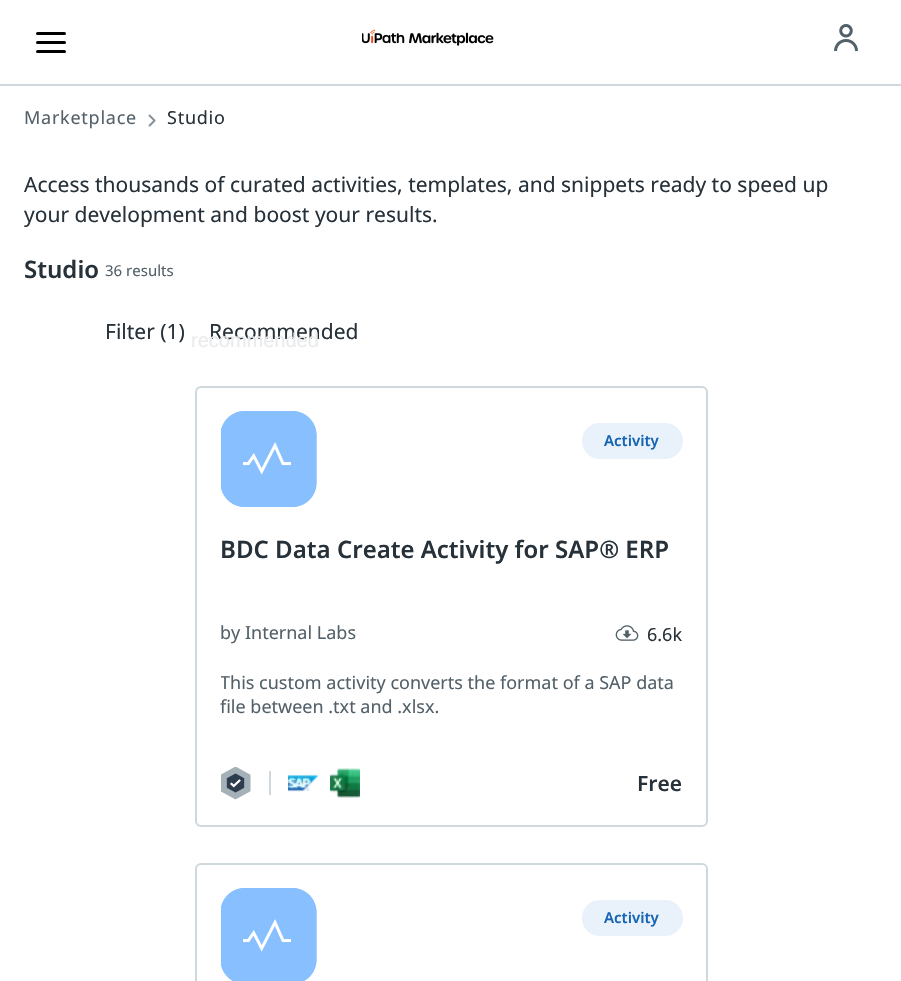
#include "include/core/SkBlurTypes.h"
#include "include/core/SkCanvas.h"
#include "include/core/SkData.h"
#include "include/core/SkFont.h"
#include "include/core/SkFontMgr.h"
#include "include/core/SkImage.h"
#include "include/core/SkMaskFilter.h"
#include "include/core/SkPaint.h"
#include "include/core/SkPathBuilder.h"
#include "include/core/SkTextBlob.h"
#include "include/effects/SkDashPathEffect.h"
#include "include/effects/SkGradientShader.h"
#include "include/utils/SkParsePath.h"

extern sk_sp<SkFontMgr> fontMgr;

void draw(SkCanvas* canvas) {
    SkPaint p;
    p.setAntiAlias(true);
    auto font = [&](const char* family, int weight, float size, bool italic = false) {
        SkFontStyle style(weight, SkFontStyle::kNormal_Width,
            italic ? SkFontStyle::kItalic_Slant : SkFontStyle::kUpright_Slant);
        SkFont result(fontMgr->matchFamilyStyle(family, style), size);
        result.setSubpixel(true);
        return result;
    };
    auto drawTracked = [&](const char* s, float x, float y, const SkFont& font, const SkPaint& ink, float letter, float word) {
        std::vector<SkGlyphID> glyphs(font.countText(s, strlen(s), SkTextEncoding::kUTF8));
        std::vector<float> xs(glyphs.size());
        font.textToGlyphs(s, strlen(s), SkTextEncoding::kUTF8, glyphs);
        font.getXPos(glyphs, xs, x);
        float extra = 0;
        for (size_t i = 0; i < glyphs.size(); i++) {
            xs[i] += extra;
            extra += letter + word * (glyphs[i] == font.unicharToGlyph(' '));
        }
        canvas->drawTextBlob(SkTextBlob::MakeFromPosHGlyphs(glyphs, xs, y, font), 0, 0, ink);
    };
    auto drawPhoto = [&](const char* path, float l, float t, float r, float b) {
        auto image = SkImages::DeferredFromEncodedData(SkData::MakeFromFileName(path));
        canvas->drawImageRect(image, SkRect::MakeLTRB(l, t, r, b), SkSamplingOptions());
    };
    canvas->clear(0xFFFFFFFF);
    p.setColor(0xFFCFD8DD);
    canvas->drawRect(SkRect::MakeLTRB(0, 84, 901, 86), p);
    p.setColor(0xFF000000);
    canvas->drawRoundRect(SkRect::MakeLTRB(36, 32, 66, 35), 1.5f, 1.5f, p);
    canvas->drawRoundRect(SkRect::MakeLTRB(36, 41, 66, 44), 1.5f, 1.5f, p);
    canvas->drawRoundRect(SkRect::MakeLTRB(36, 50, 66, 53), 1.5f, 1.5f, p);
    drawPhoto("media/1.png", 362, 29, 494, 46);
    drawPhoto("media/2.png", 834, 24, 858, 51);
    auto font1 = font("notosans", 400, 18);
    p.setColor(0xFF526069);
    drawTracked("Marketplace", 24, 124, font1, p, 0.75f, 0);
    drawPhoto("media/3.png", 148, 114, 156, 127);
    p.setColor(0xFF273139);
    drawTracked("Studio", 167, 124, font1, p, 0.75f, 0);
    auto font2 = font("notosans", 400, 21);
    canvas->drawString("Access thousands of curated activities, templates, and snippets ready to speed up", 24, 192, font2, p);
    canvas->drawString("your development and boost your results.", 24, 222, font2, p);
    auto font3 = font("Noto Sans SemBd", 600, 24);
    canvas->drawString("Studio", 24, 278, font3, p);
    auto font4 = font("notosans", 400, 15);
    p.setColor(0xFF526069);
    canvas->drawString("36 results", 105, 276, font4, p);
    p.setColor(0xFF273139);
    canvas->drawString("Filter (1)", 105, 339, font2, p);
    canvas->drawString("Recommended", 209, 339, font2, p);
    auto font5 = font("Liberation Sans", 400, 20);
    p.setColor(0xFFEAEBEC);
    canvas->drawString("recommended", 191, 347, font5, p);
    p.setStyle(SkPaint::kStroke_Style);
    p.setStrokeWidth(2);
    p.setColor(0xFFCFD8DD);
    canvas->drawRoundRect(SkRect::MakeLTRB(196, 387, 707, 826), 5, 5, p);
    drawPhoto("media/4.png", 221, 411, 317, 507);
    p.setStyle(SkPaint::kFill_Style);
    p.setColor(0xFFE9F1FA);
    canvas->drawRoundRect(SkRect::MakeLTRB(583, 424, 682, 458), 17, 17, p);
    p.setStyle(SkPaint::kStroke_Style);
    canvas->drawRoundRect(SkRect::MakeLTRB(583, 424, 682, 458), 17, 17, p);
    auto font6 = font("Noto Sans SemBd", 600, 15);
    p.setStyle(SkPaint::kFill_Style);
    p.setColor(0xFF1665B3);
    canvas->drawString("Activity", 604, 446, font6, p);
    p.setColor(0xFF273139);
    canvas->drawString("BDC Data Create Activity for SAP® ERP", 220, 558, font3, p);
    p.setColor(0xFF526069);
    canvas->drawString("by Internal Labs", 220, 639, font1, p);
    drawPhoto("media/5.png", 615, 625, 639, 641);
    p.setColor(0xFF273139);
    canvas->drawString("6.6k", 647, 641, font1, p);
    canvas->save();
    canvas->clipRect(SkRect::MakeLTRB(221, 671, 683, 743));
    p.setColor(0xFF526069);
    canvas->drawString("This custom activity converts the format of a SAP data", 220, 689, font1, p);
    canvas->restore();
    canvas->drawString("file between .txt and .xlsx.", 220, 713, font1, p);
    drawPhoto("media/6.png", 221, 767, 251, 800);
    p.setColor(0xFFCFD8DD);
    canvas->drawRect(SkRect::MakeLTRB(269, 771, 271, 795), p);
    drawPhoto("media/7.png", 288, 774, 318, 792);
    drawPhoto("media/8.png", 330, 768, 360, 798);
    auto font7 = font("Noto Sans SemBd", 600, 21);
    p.setColor(0xFF273139);
    canvas->drawString("Free", 637, 791, font7, p);
    p.setStyle(SkPaint::kStroke_Style);
    p.setColor(0xFFCFD8DD);
    canvas->drawRoundRect(SkRect::MakeLTRB(196, 864, 707, 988), 5, 5, p);
    drawPhoto("media/9.png", 221, 888, 317, 981);
    p.setStyle(SkPaint::kFill_Style);
    p.setColor(0xFFE9F1FA);
    canvas->drawRoundRect(SkRect::MakeLTRB(583, 901, 682, 935), 17, 17, p);
    p.setStyle(SkPaint::kStroke_Style);
    canvas->drawRoundRect(SkRect::MakeLTRB(583, 901, 682, 935), 17, 17, p);
    p.setStyle(SkPaint::kFill_Style);
    p.setColor(0xFF1665B3);
    canvas->drawString("Activity", 604, 923, font6, p);
}
